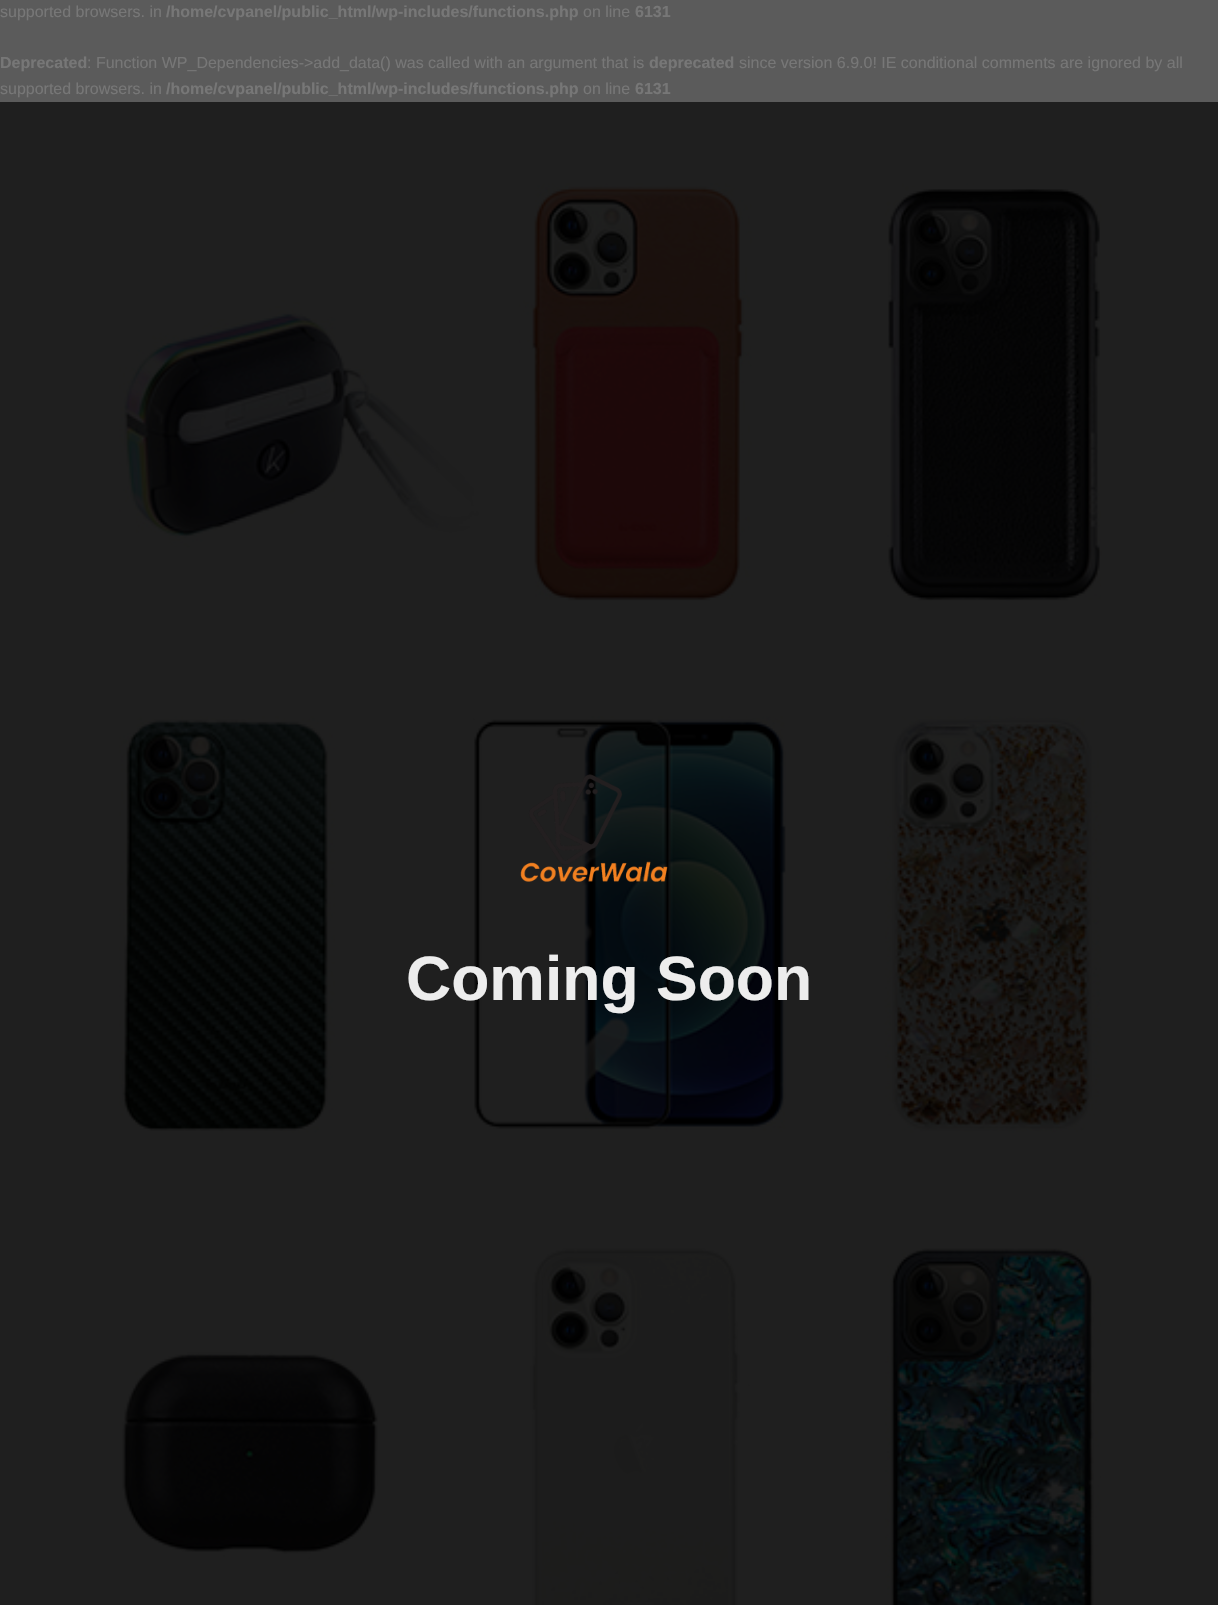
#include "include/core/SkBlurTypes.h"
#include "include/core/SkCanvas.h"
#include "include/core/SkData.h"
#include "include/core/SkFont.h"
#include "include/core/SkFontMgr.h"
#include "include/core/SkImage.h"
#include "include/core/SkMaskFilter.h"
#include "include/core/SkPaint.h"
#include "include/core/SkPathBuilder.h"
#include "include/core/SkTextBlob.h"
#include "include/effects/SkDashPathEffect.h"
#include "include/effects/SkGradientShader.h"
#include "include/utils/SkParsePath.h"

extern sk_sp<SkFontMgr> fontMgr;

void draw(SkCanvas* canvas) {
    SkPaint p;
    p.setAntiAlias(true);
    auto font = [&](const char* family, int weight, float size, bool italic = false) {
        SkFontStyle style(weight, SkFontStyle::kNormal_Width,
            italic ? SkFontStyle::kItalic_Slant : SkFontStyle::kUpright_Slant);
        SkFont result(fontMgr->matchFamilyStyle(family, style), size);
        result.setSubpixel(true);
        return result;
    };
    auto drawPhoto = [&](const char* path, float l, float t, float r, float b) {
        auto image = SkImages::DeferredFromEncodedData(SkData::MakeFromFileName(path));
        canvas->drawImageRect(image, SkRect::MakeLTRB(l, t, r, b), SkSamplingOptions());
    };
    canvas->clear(0xFF5B5B5B);
    auto font1 = font("Liberation Sans", 400, 16);
    p.setColor(0xFF777777);
    canvas->drawString("supported browsers. in", 0, 17, font1, p);
    auto font2 = font("Liberation Sans", 700, 16);
    canvas->drawString("/home/cvpanel/public_html/wp-includes/functions.php", 166, 17, font2, p);
    canvas->drawString("on line", 583, 17, font1, p);
    canvas->drawString("6131", 635, 17, font2, p);
    canvas->drawString("Deprecated", 0, 68, font2, p);
    canvas->drawString(": Function WP_Dependencies->add_data() was called with an argument that is", 87, 68, font1, p);
    canvas->drawString("deprecated", 649, 68, font2, p);
    canvas->drawString("since version 6.9.0! IE conditional comments are ignored by all", 739, 68, font1, p);
    canvas->drawString("supported browsers. in", 0, 94, font1, p);
    canvas->drawString("/home/cvpanel/public_html/wp-includes/functions.php", 166, 94, font2, p);
    canvas->drawString("on line", 583, 94, font1, p);
    canvas->drawString("6131", 635, 94, font2, p);
    drawPhoto("media/1.png", 0, 102, 1218, 1605);
    drawPhoto("media/2.png", 520, 774, 668, 882);
    auto font3 = font("Liberation Sans", 700, 62.5f);
    p.setColor(0xFFEDEDED);
    canvas->drawString("Coming Soon", 406, 1000, font3, p);
}
